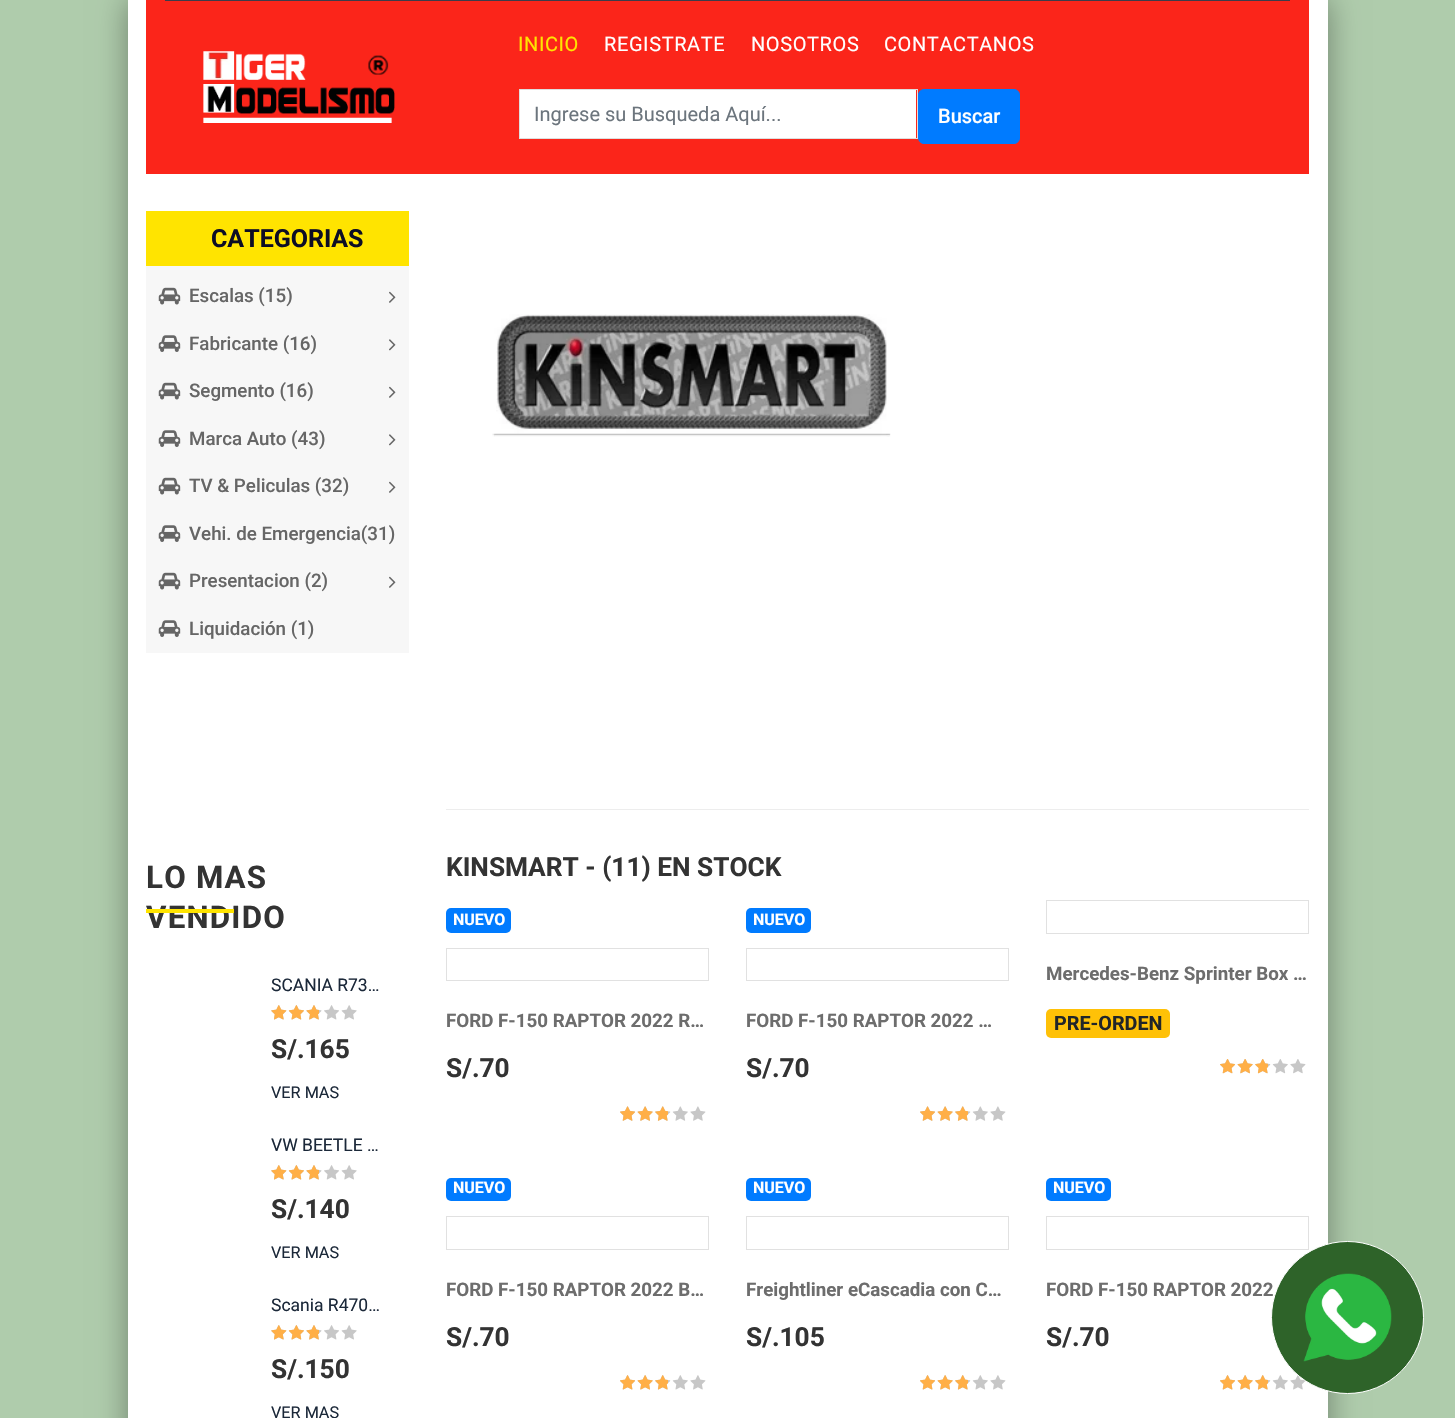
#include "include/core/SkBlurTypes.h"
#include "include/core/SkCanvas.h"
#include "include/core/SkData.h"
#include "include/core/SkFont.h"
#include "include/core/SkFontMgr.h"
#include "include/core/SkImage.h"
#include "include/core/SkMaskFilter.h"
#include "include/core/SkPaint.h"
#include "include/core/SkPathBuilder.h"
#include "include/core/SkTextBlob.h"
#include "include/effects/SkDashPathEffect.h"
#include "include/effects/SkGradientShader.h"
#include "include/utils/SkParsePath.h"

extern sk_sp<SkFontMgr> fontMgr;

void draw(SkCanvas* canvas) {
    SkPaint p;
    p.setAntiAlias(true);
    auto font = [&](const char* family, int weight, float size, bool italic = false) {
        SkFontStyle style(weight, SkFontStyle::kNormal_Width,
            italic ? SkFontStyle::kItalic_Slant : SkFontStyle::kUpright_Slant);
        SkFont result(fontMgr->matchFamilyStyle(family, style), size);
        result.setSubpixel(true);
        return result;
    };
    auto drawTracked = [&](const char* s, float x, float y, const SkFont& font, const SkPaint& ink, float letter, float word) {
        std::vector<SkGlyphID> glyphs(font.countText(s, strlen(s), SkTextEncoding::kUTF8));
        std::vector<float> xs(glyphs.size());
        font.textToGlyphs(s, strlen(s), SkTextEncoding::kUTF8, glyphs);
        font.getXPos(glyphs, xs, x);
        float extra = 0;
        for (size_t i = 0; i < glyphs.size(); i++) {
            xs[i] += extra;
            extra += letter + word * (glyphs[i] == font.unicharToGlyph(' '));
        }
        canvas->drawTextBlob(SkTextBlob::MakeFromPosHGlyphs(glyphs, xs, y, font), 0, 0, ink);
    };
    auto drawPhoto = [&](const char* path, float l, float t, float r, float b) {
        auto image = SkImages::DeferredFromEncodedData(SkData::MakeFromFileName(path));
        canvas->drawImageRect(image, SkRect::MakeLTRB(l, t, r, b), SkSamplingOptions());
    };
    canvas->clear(0xFFAFCCAC);
    p.setColor(0x5E000000);
    p.setMaskFilter(SkMaskFilter::MakeBlur(kNormal_SkBlurStyle, 15));
    canvas->drawRect(SkRect::MakeLTRB(128, 0, 1328, 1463), p);
    p.setMaskFilter(nullptr);
    {
        const struct { float l, t, r, b; SkColor color; } items[] = {
            {128, 0, 1328, 1418, 0xFFFFFFFF},
            {146, 0, 1309, 174, 0xFFFB251A},
            {165, 0, 1290, 1, 0xFF3C3C4A},
        };
        for (auto [l, t, r, b, color] : items) {
            p.setColor(color);
            canvas->drawRect(SkRect::MakeLTRB(l, t, r, b), p);
        }
    }
    drawPhoto("media/1.png", 203, 51, 395, 123);
    auto font1 = font("Roboto", 400, 20);
    p.setColor(0xFFFFE400);
    drawTracked("INICIO", 518, 51, font1, p, 0.6f, 0);
    p.setColor(0xFFFFFFFF);
    {
        const struct { const char* s; float x, y; } items[] = {
            {"REGISTRATE", 604, 51},
            {"NOSOTROS", 751, 51},
            {"CONTACTANOS", 884, 51},
        };
        for (auto [s, x, y] : items) {
            drawTracked(s, x, y, font1, p, 0.6f, 0);
        }
    }
    canvas->drawRect(SkRect::MakeLTRB(520, 90, 916, 138), p);
    p.setStyle(SkPaint::kStroke_Style);
    p.setStrokeWidth(1);
    p.setColor(0xFFDEDEDE);
    canvas->drawRect(SkRect::MakeLTRB(519.5f, 89.5f, 917.5f, 138.5f), p);
    p.setStyle(SkPaint::kFill_Style);
    p.setColor(0xFF6C757D);
    canvas->drawString("Ingrese su Busqueda Aquí...", 534, 121, font1, p);
    p.setColor(0xFF007BFF);
    canvas->drawRoundRect(SkRect::MakeLTRB(918.5f, 89.5f, 1019.5f, 143.5f), 5.5f, 5.5f, p);
    p.setStyle(SkPaint::kStroke_Style);
    canvas->drawRoundRect(SkRect::MakeLTRB(918.5f, 89.5f, 1019.5f, 143.5f), 5.5f, 5.5f, p);
    auto font2 = font("Roboto", 500, 20);
    p.setStyle(SkPaint::kFill_Style);
    p.setColor(0xFFFFFFFF);
    canvas->drawString("Buscar", 938, 123, font2, p);
    p.setColor(0xFFFFE400);
    canvas->drawRect(SkRect::MakeLTRB(146, 211, 409, 266), p);
    auto font3 = font("Roboto", 700, 25);
    p.setColor(0xFF0D0D25);
    canvas->drawString("CATEGORIAS", 211, 247, font3, p);
    p.setColor(0xFFF7F7F7);
    canvas->drawRect(SkRect::MakeLTRB(146, 266, 409, 653), p);
    drawPhoto("media/2.png", 158, 287, 181, 305);
    auto font4 = font("Roboto", 500, 18.75f);
    p.setColor(0xFF666666);
    canvas->drawString("Escalas (15)", 189, 302, font4, p);
    drawPhoto("media/3.png", 389, 291, 396, 303);
    drawPhoto("media/4.png", 158, 335, 181, 352);
    canvas->drawString("Fabricante (16)", 189, 350, font4, p);
    drawPhoto("media/5.png", 389, 339, 396, 351);
    drawPhoto("media/2.png", 158, 382, 181, 400);
    canvas->drawString("Segmento (16)", 189, 397, font4, p);
    drawPhoto("media/3.png", 389, 386, 396, 398);
    drawPhoto("media/4.png", 158, 430, 181, 447);
    canvas->drawString("Marca Auto (43)", 189, 445, font4, p);
    drawPhoto("media/5.png", 389, 434, 396, 446);
    drawPhoto("media/2.png", 158, 477, 181, 495);
    canvas->drawString("TV & Peliculas (32)", 189, 492, font4, p);
    drawPhoto("media/3.png", 389, 481, 396, 493);
    drawPhoto("media/4.png", 158, 525, 181, 542);
    canvas->drawString("Vehi. de Emergencia(31)", 189, 540, font4, p);
    drawPhoto("media/2.png", 158, 572, 181, 590);
    canvas->drawString("Presentacion (2)", 189, 587, font4, p);
    drawPhoto("media/3.png", 389, 576, 396, 588);
    drawPhoto("media/4.png", 158, 620, 181, 637);
    canvas->drawString("Liquidación (1)", 189, 635, font4, p);
    drawPhoto("media/6.png", 492, 314, 891, 437);
    auto font5 = font("Roboto", 700, 31.25f);
    p.setColor(0xFF333333);
    drawTracked("LO MAS", 146, 888, font5, p, 1.25f, 0);
    drawTracked("VENDIDO", 146, 928, font5, p, 1.25f, 0);
    p.setColor(0xFFFFE400);
    canvas->drawRect(SkRect::MakeLTRB(146, 909, 234, 913), p);
    auto font6 = font("Roboto", 400, 17.5f);
    p.setColor(0xFF1B2839);
    canvas->drawString("SCANIA R73…", 271, 991, font6, p);
    drawPhoto("media/7.png", 271, 1005, 357, 1020);
    drawPhoto("media/8.png", 271, 1005, 319, 1020);
    auto font7 = font("Roboto", 700, 26.25f);
    p.setColor(0xFF333333);
    canvas->drawString("S/.165", 271, 1058, font7, p);
    auto font8 = font("Roboto", 400, 16.25f);
    p.setColor(0xFF1B2839);
    canvas->drawString("VER MAS", 271, 1098, font8, p);
    canvas->drawString("VW BEETLE …", 271, 1151, font6, p);
    drawPhoto("media/7.png", 271, 1165, 357, 1180);
    drawPhoto("media/8.png", 271, 1165, 319, 1180);
    p.setColor(0xFF333333);
    canvas->drawString("S/.140", 271, 1218, font7, p);
    p.setColor(0xFF1B2839);
    canvas->drawString("VER MAS", 271, 1258, font8, p);
    canvas->drawString("Scania R470…", 271, 1311, font6, p);
    drawPhoto("media/7.png", 271, 1325, 357, 1340);
    drawPhoto("media/8.png", 271, 1325, 319, 1340);
    p.setColor(0xFF333333);
    canvas->drawString("S/.150", 271, 1378, font7, p);
    p.setColor(0xFF1B2839);
    canvas->drawString("VER MAS", 271, 1418, font8, p);
    p.setColor(0xFFEDEDED);
    canvas->drawRect(SkRect::MakeLTRB(446, 809, 1309, 810), p);
    p.setColor(0xFF333333);
    canvas->drawString("KINSMART - (11) EN STOCK", 446, 876, font7, p);
    p.setColor(0xFF007BFF);
    canvas->drawRoundRect(SkRect::MakeLTRB(446, 908, 511, 933), 5, 5, p);
    auto font9 = font("Roboto", 700, 16);
    p.setColor(0xFFFFFFFF);
    canvas->drawString("NUEVO", 453, 925, font9, p);
    p.setStyle(SkPaint::kStroke_Style);
    p.setColor(0xFFE1E1E1);
    canvas->drawRect(SkRect::MakeLTRB(446.5f, 948.5f, 708.5f, 980.5f), p);
    auto font10 = font("Roboto", 700, 18.75f);
    p.setStyle(SkPaint::kFill_Style);
    p.setColor(0xFF6D6D6D);
    canvas->drawString("FORD F-150 RAPTOR 2022 R…", 446, 1027, font10, p);
    p.setColor(0xFF333333);
    canvas->drawString("S/.70", 446, 1077, font7, p);
    drawPhoto("media/9.png", 620, 1106, 706, 1121);
    drawPhoto("media/10.png", 620, 1106, 668, 1121);
    p.setColor(0xFF007BFF);
    canvas->drawRoundRect(SkRect::MakeLTRB(746, 908, 811, 933), 5, 5, p);
    p.setColor(0xFFFFFFFF);
    canvas->drawString("NUEVO", 753, 925, font9, p);
    p.setStyle(SkPaint::kStroke_Style);
    p.setColor(0xFFE1E1E1);
    canvas->drawRect(SkRect::MakeLTRB(746.5f, 948.5f, 1008.5f, 980.5f), p);
    p.setStyle(SkPaint::kFill_Style);
    p.setColor(0xFF6D6D6D);
    canvas->drawString("FORD F-150 RAPTOR 2022 …", 746, 1027, font10, p);
    p.setColor(0xFF333333);
    canvas->drawString("S/.70", 746, 1077, font7, p);
    drawPhoto("media/9.png", 920, 1106, 1006, 1121);
    drawPhoto("media/10.png", 920, 1106, 968, 1121);
    p.setStyle(SkPaint::kStroke_Style);
    p.setColor(0xFFE1E1E1);
    canvas->drawRect(SkRect::MakeLTRB(1046.5f, 900.5f, 1308.5f, 933.5f), p);
    p.setStyle(SkPaint::kFill_Style);
    p.setColor(0xFF6D6D6D);
    canvas->drawString("Mercedes-Benz Sprinter Box …", 1046, 980, font10, p);
    p.setColor(0xFFFFC107);
    canvas->drawRoundRect(SkRect::MakeLTRB(1046, 1009, 1170, 1038), 5, 5, p);
    auto font11 = font("Roboto", 700, 19.75f);
    p.setColor(0xFF212529);
    canvas->drawString("PRE-ORDEN", 1054, 1030, font11, p);
    drawPhoto("media/11.png", 1220, 1059, 1306, 1074);
    drawPhoto("media/12.png", 1220, 1059, 1268, 1074);
    p.setColor(0xFF007BFF);
    canvas->drawRoundRect(SkRect::MakeLTRB(446, 1178, 511, 1201), 5, 5, p);
    p.setColor(0xFFFFFFFF);
    canvas->drawString("NUEVO", 453, 1193, font9, p);
    p.setStyle(SkPaint::kStroke_Style);
    p.setColor(0xFFE1E1E1);
    canvas->drawRect(SkRect::MakeLTRB(446.5f, 1216.5f, 708.5f, 1249.5f), p);
    p.setStyle(SkPaint::kFill_Style);
    p.setColor(0xFF6D6D6D);
    canvas->drawString("FORD F-150 RAPTOR 2022 B…", 446, 1296, font10, p);
    p.setColor(0xFF333333);
    canvas->drawString("S/.70", 446, 1346, font7, p);
    drawPhoto("media/13.png", 620, 1375, 706, 1390);
    drawPhoto("media/14.png", 620, 1375, 668, 1390);
    p.setColor(0xFF007BFF);
    canvas->drawRoundRect(SkRect::MakeLTRB(746, 1178, 811, 1201), 5, 5, p);
    p.setColor(0xFFFFFFFF);
    canvas->drawString("NUEVO", 753, 1193, font9, p);
    p.setStyle(SkPaint::kStroke_Style);
    p.setColor(0xFFE1E1E1);
    canvas->drawRect(SkRect::MakeLTRB(746.5f, 1216.5f, 1008.5f, 1249.5f), p);
    p.setStyle(SkPaint::kFill_Style);
    p.setColor(0xFF6D6D6D);
    canvas->drawString("Freightliner eCascadia con C…", 746, 1296, font10, p);
    p.setColor(0xFF333333);
    canvas->drawString("S/.105", 746, 1346, font7, p);
    drawPhoto("media/13.png", 920, 1375, 1006, 1390);
    drawPhoto("media/14.png", 920, 1375, 968, 1390);
    p.setColor(0xFF007BFF);
    canvas->drawRoundRect(SkRect::MakeLTRB(1046, 1178, 1111, 1201), 5, 5, p);
    p.setColor(0xFFFFFFFF);
    canvas->drawString("NUEVO", 1053, 1193, font9, p);
    p.setStyle(SkPaint::kStroke_Style);
    p.setColor(0xFFE1E1E1);
    canvas->drawRect(SkRect::MakeLTRB(1046.5f, 1216.5f, 1308.5f, 1249.5f), p);
    p.setStyle(SkPaint::kFill_Style);
    p.setColor(0xFF6D6D6D);
    canvas->drawString("FORD F-150 RAPTOR 2022", 1046, 1296, font10, p);
    p.setColor(0xFF333333);
    canvas->drawString("S/.70", 1046, 1346, font7, p);
    drawPhoto("media/13.png", 1220, 1375, 1306, 1390);
    drawPhoto("media/14.png", 1220, 1375, 1268, 1390);
    p.setColor(0xFF2E6329);
    canvas->drawCircle(1347.5f, 1317.5f, 76, p);
    p.setStyle(SkPaint::kStroke_Style);
    p.setColor(0xFFFFFFFF);
    canvas->drawCircle(1347.5f, 1317.5f, 76, p);
    drawPhoto("media/15.png", 1303, 1273, 1392, 1362);
}
